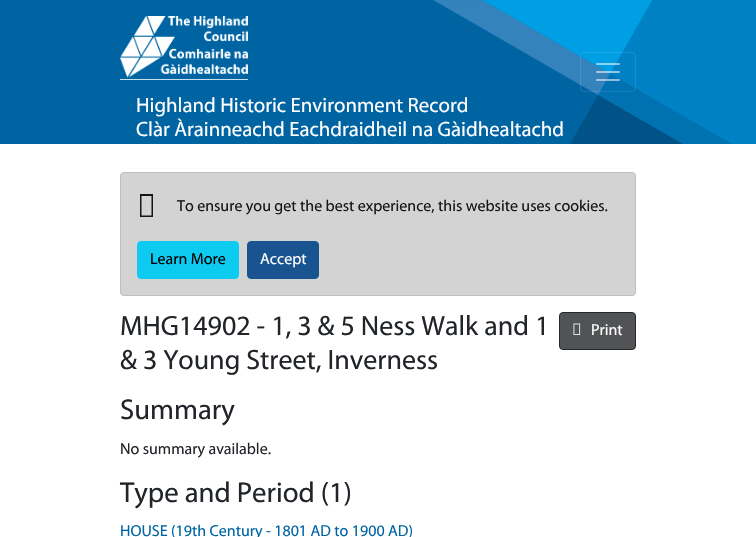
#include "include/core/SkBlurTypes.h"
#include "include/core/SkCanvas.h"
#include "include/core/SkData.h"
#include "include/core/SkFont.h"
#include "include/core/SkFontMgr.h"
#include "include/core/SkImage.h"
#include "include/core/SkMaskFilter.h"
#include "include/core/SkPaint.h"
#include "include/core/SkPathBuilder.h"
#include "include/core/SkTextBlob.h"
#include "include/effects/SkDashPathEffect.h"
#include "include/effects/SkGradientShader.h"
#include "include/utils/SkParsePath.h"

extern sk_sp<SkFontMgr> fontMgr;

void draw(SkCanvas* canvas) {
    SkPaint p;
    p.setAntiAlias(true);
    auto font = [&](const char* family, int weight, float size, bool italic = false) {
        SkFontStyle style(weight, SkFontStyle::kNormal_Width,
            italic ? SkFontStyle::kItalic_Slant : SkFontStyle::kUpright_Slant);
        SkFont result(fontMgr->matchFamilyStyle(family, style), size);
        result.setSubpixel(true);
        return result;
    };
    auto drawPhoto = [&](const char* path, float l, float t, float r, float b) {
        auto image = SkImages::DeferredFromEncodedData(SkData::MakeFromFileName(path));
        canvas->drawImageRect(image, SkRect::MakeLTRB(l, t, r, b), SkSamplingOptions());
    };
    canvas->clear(0xFFFFFFFF);
    p.setColor(0xFF0064A3);
    canvas->drawRect(SkRect::MakeLTRB(0, 0, 756, 144), p);
    drawPhoto("media/1.png", 433, 0, 756, 144);
    p.setStyle(SkPaint::kStroke_Style);
    p.setStrokeWidth(1);
    p.setColor(0x1AFFFFFF);
    canvas->drawRoundRect(SkRect::MakeLTRB(580.5f, 52.5f, 635.5f, 91.5f), 3.5f, 3.5f, p);
    drawPhoto("media/2.png", 596, 63, 620, 81);
    drawPhoto("media/3.png", 120, 16, 248, 80);
    auto font1 = font("Myriad", 400, 20.8f);
    p.setStyle(SkPaint::kFill_Style);
    p.setColor(0xFFFFFFFF);
    canvas->drawString("Highland Historic Environment Record", 136, 112, font1, p);
    canvas->drawString("Clàr Àrainneachd Eachdraidheil na Gàidhealtachd", 136, 136, font1, p);
    p.setColor(0xFFD3D3D4);
    canvas->drawRoundRect(SkRect::MakeLTRB(120.5f, 172.5f, 635.5f, 295.5f), 3.5f, 3.5f, p);
    p.setStyle(SkPaint::kStroke_Style);
    p.setColor(0xFFBCBEBF);
    canvas->drawRoundRect(SkRect::MakeLTRB(120.5f, 172.5f, 635.5f, 295.5f), 3.5f, 3.5f, p);
    p.setStyle(SkPaint::kFill_Style);
    p.setColor(0xFF141619);
    canvas->drawPath(SkPathBuilder().moveTo(140, 217).lineTo(140, 194).lineTo(153, 194).lineTo(153, 217).close().moveTo(141.5f, 215.5f).lineTo(151.5f, 215.5f).lineTo(151.5f, 196).lineTo(141.5f, 196).close().detach(), p);
    auto font2 = font("Myriad", 400, 16);
    canvas->drawString("To ensure you get the best experience, this website uses cookies.", 177, 211, font2, p);
    p.setColor(0xFF0DCAF0);
    canvas->drawRoundRect(SkRect::MakeLTRB(137.5f, 241.5f, 238.5f, 278.5f), 3.5f, 3.5f, p);
    p.setStyle(SkPaint::kStroke_Style);
    canvas->drawRoundRect(SkRect::MakeLTRB(137.5f, 241.5f, 238.5f, 278.5f), 3.5f, 3.5f, p);
    p.setStyle(SkPaint::kFill_Style);
    p.setColor(0xFF000000);
    canvas->drawString("Learn More", 150, 264, font2, p);
    p.setColor(0xFF195491);
    canvas->drawRoundRect(SkRect::MakeLTRB(247.5f, 241.5f, 318.5f, 278.5f), 3.5f, 3.5f, p);
    p.setStyle(SkPaint::kStroke_Style);
    canvas->drawRoundRect(SkRect::MakeLTRB(247.5f, 241.5f, 318.5f, 278.5f), 3.5f, 3.5f, p);
    p.setStyle(SkPaint::kFill_Style);
    p.setColor(0xFFFFFFFF);
    canvas->drawString("Accept", 260, 264, font2, p);
    auto font3 = font("Myriad", 400, 28);
    p.setColor(0xFF212529);
    canvas->drawString("MHG14902 - 1, 3 & 5 Ness Walk and 1", 120, 335, font3, p);
    canvas->drawString("& 3 Young Street, Inverness", 120, 369, font3, p);
    p.setColor(0xFF515355);
    canvas->drawRoundRect(SkRect::MakeLTRB(559.5f, 312.5f, 635.5f, 349.5f), 3.5f, 3.5f, p);
    p.setStyle(SkPaint::kStroke_Style);
    p.setColor(0xFF25282A);
    canvas->drawRoundRect(SkRect::MakeLTRB(559.5f, 312.5f, 635.5f, 349.5f), 3.5f, 3.5f, p);
    drawPhoto("media/4.png", 573, 323, 581, 335);
    p.setStyle(SkPaint::kFill_Style);
    p.setColor(0xFFFFFFFF);
    canvas->drawString("Print", 591, 335, font2, p);
    auto font4 = font("Myriad", 400, 28.75f);
    p.setColor(0xFF212529);
    canvas->drawString("Summary", 120, 419, font4, p);
    canvas->drawString("No summary available.", 120, 454, font2, p);
    canvas->drawString("Type and Period (1)", 120, 502, font4, p);
    p.setColor(0xFF0064A3);
    canvas->drawString("HOUSE (19th Century - 1801 AD to 1900 AD)", 120, 536, font2, p);
}
